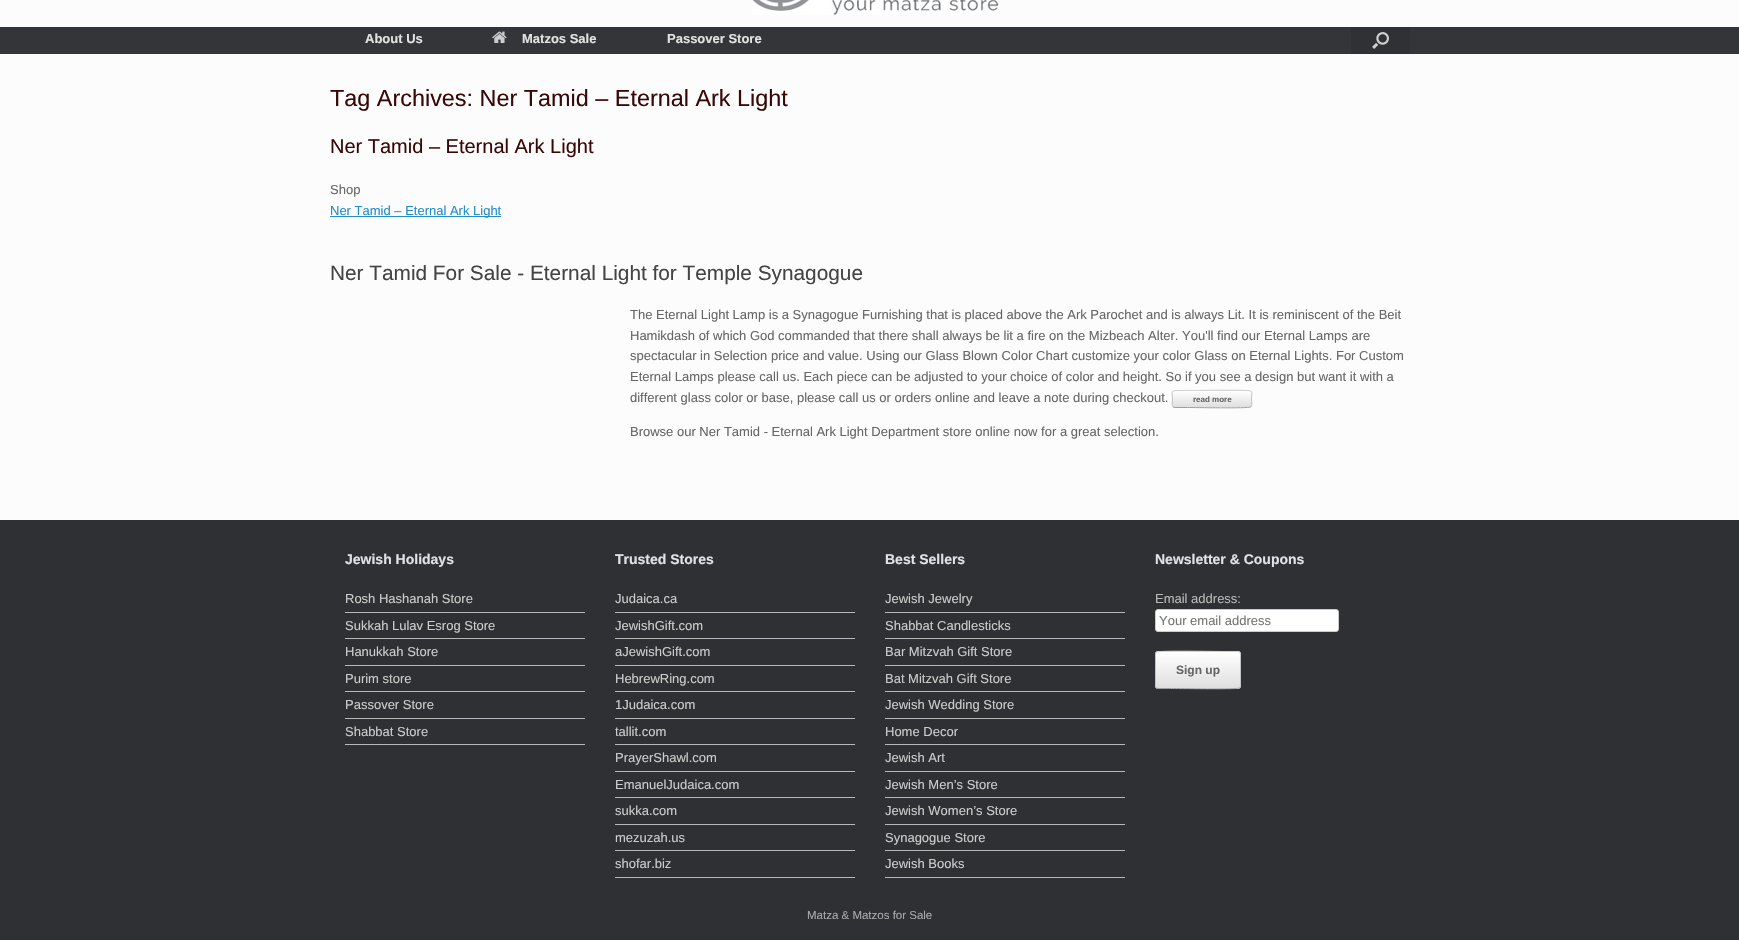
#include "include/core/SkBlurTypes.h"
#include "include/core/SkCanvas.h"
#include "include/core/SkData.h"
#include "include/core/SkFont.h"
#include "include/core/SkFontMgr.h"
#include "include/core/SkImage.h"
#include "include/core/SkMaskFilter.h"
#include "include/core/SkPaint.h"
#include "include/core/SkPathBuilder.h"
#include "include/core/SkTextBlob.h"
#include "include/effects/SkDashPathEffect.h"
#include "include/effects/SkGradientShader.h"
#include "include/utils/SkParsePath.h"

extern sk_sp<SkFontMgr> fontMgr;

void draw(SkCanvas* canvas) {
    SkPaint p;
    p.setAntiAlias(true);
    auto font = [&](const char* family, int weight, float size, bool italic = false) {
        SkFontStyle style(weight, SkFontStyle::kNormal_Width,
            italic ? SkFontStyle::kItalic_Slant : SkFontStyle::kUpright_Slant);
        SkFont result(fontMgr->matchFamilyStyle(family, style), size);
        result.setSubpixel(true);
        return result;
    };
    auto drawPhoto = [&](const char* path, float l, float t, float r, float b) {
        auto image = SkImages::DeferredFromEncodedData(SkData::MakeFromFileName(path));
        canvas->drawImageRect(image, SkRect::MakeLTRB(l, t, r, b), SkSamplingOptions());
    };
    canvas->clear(0xFF2F3033);
    p.setColor(0xFFFCFCFC);
    canvas->drawRect(SkRect::MakeLTRB(0, 0, 1739, 27), p);
    drawPhoto("media/1.png", 752, 0, 999, 15);
    p.setColor(0xFF343538);
    canvas->drawRect(SkRect::MakeLTRB(0, 27, 1739, 54), p);
    auto font1 = font("Liberation Sans", 700, 13);
    p.setColor(0xFFE2E2E2);
    canvas->drawString("About Us", 365, 43, font1, p);
    drawPhoto("media/2.png", 492, 31, 507, 43);
    canvas->drawString("Matzos Sale", 522, 43, font1, p);
    canvas->drawString("Passover Store", 667, 43, font1, p);
    p.setColor(0xFF303134);
    canvas->drawRect(SkRect::MakeLTRB(1351, 27, 1410, 54), p);
    drawPhoto("media/3.png", 1372, 32, 1389, 49);
    p.setColor(0xFFFCFCFC);
    canvas->drawRect(SkRect::MakeLTRB(0, 54, 1739, 520), p);
    auto font2 = font("Liberation Sans", 400, 23.4f);
    p.setColor(0xFF3A0707);
    canvas->drawString("Tag Archives: Ner Tamid – Eternal Ark Light", 330, 106, font2, p);
    auto font3 = font("Liberation Sans", 400, 20);
    canvas->drawString("Ner Tamid – Eternal Ark Light", 330, 153, font3, p);
    auto font4 = font("Liberation Sans", 400, 13);
    p.setColor(0xFF666666);
    canvas->drawString("Shop", 330, 194, font4, p);
    p.setColor(0xFF248CC8);
    canvas->drawRect(SkRect::MakeLTRB(330, 216, 501, 217), p);
    canvas->drawString("Ner Tamid – Eternal Ark Light", 330, 215, font4, p);
    auto font5 = font("Liberation Sans", 400, 20.8f);
    p.setColor(0xFF444444);
    canvas->drawString("Ner Tamid For Sale - Eternal Light for Temple Synagogue", 330, 280, font5, p);
    p.setColor(0xFF666666);
    {
        const struct { const char* s; float x, y; } items[] = {
            {"The Eternal Light Lamp is a Synagogue Furnishing that is placed above the Ark Parochet and is always Lit. It is reminiscent of the Beit", 630, 319},
            {"Hamikdash of which God commanded that there shall always be lit a fire on the Mizbeach Alter. You'll find our Eternal Lamps are", 630, 340},
            {"spectacular in Selection price and value. Using our Glass Blown Color Chart customize your color Glass on Eternal Lights. For Custom", 630, 360},
            {"Eternal Lamps please call us. Each piece can be adjusted to your choice of color and height. So if you see a design but want it with a", 630, 381},
            {"different glass color or base, please call us or orders online and leave a note during checkout.", 630, 402},
        };
        for (auto [s, x, y] : items) {
            canvas->drawString(s, x, y, font4, p);
        }
    }
    canvas->save();
    canvas->clipPath(SkPathBuilder().moveTo(1175, 390).lineTo(1249, 390).cubicTo(1250.5f, 390, 1252, 391.5f, 1252, 393).lineTo(1252, 405).cubicTo(1252, 406.5f, 1250.5f, 408, 1249, 408).lineTo(1175, 408).cubicTo(1173.5f, 408, 1172, 406.5f, 1172, 405).lineTo(1172, 393).cubicTo(1172, 391.5f, 1173.5f, 390, 1175, 390).close().detach(), true);
    {
        const SkColor colors[] = {0xFFDFDFDF, 0xFFFFFFFF};
        const float stops[] = {0, 1};
        const SkPoint ends[] = {{1173, 391}, {1173, 375}};
        p.setShader(SkGradientShader::MakeLinear(ends, colors, stops, 2, SkTileMode::kClamp));
        p.setAlpha(255);
    }
    canvas->drawRect(SkRect::MakeLTRB(1172, 390, 1252, 391), p);
    {
        const SkColor colors[] = {0xFFDFDFDF, 0xFFFFFFFF};
        const float stops[] = {0, 1};
        const SkPoint ends[] = {{1173, 407}, {1173, 391}};
        p.setShader(SkGradientShader::MakeLinear(ends, colors, stops, 2, SkTileMode::kClamp));
        p.setAlpha(255);
    }
    canvas->drawRect(SkRect::MakeLTRB(1172, 391, 1252, 407), p);
    canvas->restore();
    p.setStyle(SkPaint::kStroke_Style);
    p.setStrokeWidth(1);
    p.setShader(nullptr);
    p.setColor(0xFFD2D2D2);
    canvas->drawPath(SkPathBuilder().moveTo(1173, 391).lineTo(1175, 390.5f).lineTo(1187.5f, 390.5f).cubicTo(1194, 390.5f, 1248.5f, 389.5f, 1250.5f, 391).lineTo(1251, 391).detach(), p);
    p.setColor(0xFFC3C3C3);
    canvas->drawPath(SkPathBuilder().moveTo(1251, 391).cubicTo(1252.5f, 392.5f, 1251.5f, 397, 1251.5f, 399).cubicTo(1251.5f, 401, 1252.5f, 405.5f, 1251, 407).detach(), p);
    p.setColor(0xFF9F9F9F);
    canvas->drawPath(SkPathBuilder().moveTo(1251, 407).lineTo(1250.5f, 407).cubicTo(1248.5f, 408.5f, 1194, 407.5f, 1187.5f, 407.5f).lineTo(1175, 407.5f).lineTo(1173, 407).detach(), p);
    p.setColor(0xFFC3C3C3);
    canvas->drawPath(SkPathBuilder().moveTo(1173, 407).cubicTo(1171.5f, 405.5f, 1172.5f, 401, 1172.5f, 399).cubicTo(1172.5f, 397, 1171.5f, 392.5f, 1173, 391).detach(), p);
    auto font6 = font("Liberation Sans", 700, 8);
    p.setStyle(SkPaint::kFill_Style);
    p.setColor(0xFF666666);
    canvas->drawString("read more", 1193, 402, font6, p);
    canvas->drawString("Browse our Ner Tamid - Eternal Ark Light Department store online now for a great selection.", 630, 436, font4, p);
    auto font7 = font("Liberation Sans", 700, 14);
    p.setColor(0xFFE2E2E2);
    canvas->drawString("Jewish Holidays", 345, 564, font7, p);
    p.setColor(0xFFB9B9B9);
    canvas->drawRect(SkRect::MakeLTRB(345, 612, 585, 613), p);
    p.setColor(0xFFCCCCCC);
    canvas->drawString("Rosh Hashanah Store", 345, 603, font4, p);
    p.setColor(0xFFB9B9B9);
    canvas->drawRect(SkRect::MakeLTRB(345, 638, 585, 639), p);
    p.setColor(0xFFCCCCCC);
    canvas->drawString("Sukkah Lulav Esrog Store", 345, 630, font4, p);
    p.setColor(0xFFB9B9B9);
    canvas->drawRect(SkRect::MakeLTRB(345, 665, 585, 666), p);
    p.setColor(0xFFCCCCCC);
    canvas->drawString("Hanukkah Store", 345, 656, font4, p);
    p.setColor(0xFFB9B9B9);
    canvas->drawRect(SkRect::MakeLTRB(345, 691, 585, 692), p);
    p.setColor(0xFFCCCCCC);
    canvas->drawString("Purim store", 345, 683, font4, p);
    p.setColor(0xFFB9B9B9);
    canvas->drawRect(SkRect::MakeLTRB(345, 718, 585, 719), p);
    p.setColor(0xFFCCCCCC);
    canvas->drawString("Passover Store", 345, 709, font4, p);
    p.setColor(0xFFB9B9B9);
    canvas->drawRect(SkRect::MakeLTRB(345, 744, 585, 745), p);
    p.setColor(0xFFCCCCCC);
    canvas->drawString("Shabbat Store", 345, 736, font4, p);
    p.setColor(0xFFE2E2E2);
    canvas->drawString("Trusted Stores", 615, 564, font7, p);
    p.setColor(0xFFB9B9B9);
    canvas->drawRect(SkRect::MakeLTRB(615, 612, 855, 613), p);
    p.setColor(0xFFCCCCCC);
    canvas->drawString("Judaica.ca", 615, 603, font4, p);
    p.setColor(0xFFB9B9B9);
    canvas->drawRect(SkRect::MakeLTRB(615, 638, 855, 639), p);
    p.setColor(0xFFCCCCCC);
    canvas->drawString("JewishGift.com", 615, 630, font4, p);
    p.setColor(0xFFB9B9B9);
    canvas->drawRect(SkRect::MakeLTRB(615, 665, 855, 666), p);
    p.setColor(0xFFCCCCCC);
    canvas->drawString("aJewishGift.com", 615, 656, font4, p);
    p.setColor(0xFFB9B9B9);
    canvas->drawRect(SkRect::MakeLTRB(615, 691, 855, 692), p);
    p.setColor(0xFFCCCCCC);
    canvas->drawString("HebrewRing.com", 615, 683, font4, p);
    p.setColor(0xFFB9B9B9);
    canvas->drawRect(SkRect::MakeLTRB(615, 718, 855, 719), p);
    p.setColor(0xFFCCCCCC);
    canvas->drawString("1Judaica.com", 615, 709, font4, p);
    p.setColor(0xFFB9B9B9);
    canvas->drawRect(SkRect::MakeLTRB(615, 744, 855, 745), p);
    p.setColor(0xFFCCCCCC);
    canvas->drawString("tallit.com", 615, 736, font4, p);
    p.setColor(0xFFB9B9B9);
    canvas->drawRect(SkRect::MakeLTRB(615, 771, 855, 772), p);
    p.setColor(0xFFCCCCCC);
    canvas->drawString("PrayerShawl.com", 615, 762, font4, p);
    p.setColor(0xFFB9B9B9);
    canvas->drawRect(SkRect::MakeLTRB(615, 797, 855, 798), p);
    p.setColor(0xFFCCCCCC);
    canvas->drawString("EmanuelJudaica.com", 615, 789, font4, p);
    p.setColor(0xFFB9B9B9);
    canvas->drawRect(SkRect::MakeLTRB(615, 824, 855, 825), p);
    p.setColor(0xFFCCCCCC);
    canvas->drawString("sukka.com", 615, 815, font4, p);
    p.setColor(0xFFB9B9B9);
    canvas->drawRect(SkRect::MakeLTRB(615, 850, 855, 851), p);
    p.setColor(0xFFCCCCCC);
    canvas->drawString("mezuzah.us", 615, 842, font4, p);
    p.setColor(0xFFB9B9B9);
    canvas->drawRect(SkRect::MakeLTRB(615, 877, 855, 878), p);
    p.setColor(0xFFCCCCCC);
    canvas->drawString("shofar.biz", 615, 868, font4, p);
    p.setColor(0xFFE2E2E2);
    canvas->drawString("Best Sellers", 885, 564, font7, p);
    p.setColor(0xFFB9B9B9);
    canvas->drawRect(SkRect::MakeLTRB(885, 612, 1125, 613), p);
    p.setColor(0xFFCCCCCC);
    canvas->drawString("Jewish Jewelry", 885, 603, font4, p);
    p.setColor(0xFFB9B9B9);
    canvas->drawRect(SkRect::MakeLTRB(885, 638, 1125, 639), p);
    p.setColor(0xFFCCCCCC);
    canvas->drawString("Shabbat Candlesticks", 885, 630, font4, p);
    p.setColor(0xFFB9B9B9);
    canvas->drawRect(SkRect::MakeLTRB(885, 665, 1125, 666), p);
    p.setColor(0xFFCCCCCC);
    canvas->drawString("Bar Mitzvah Gift Store", 885, 656, font4, p);
    p.setColor(0xFFB9B9B9);
    canvas->drawRect(SkRect::MakeLTRB(885, 691, 1125, 692), p);
    p.setColor(0xFFCCCCCC);
    canvas->drawString("Bat Mitzvah Gift Store", 885, 683, font4, p);
    p.setColor(0xFFB9B9B9);
    canvas->drawRect(SkRect::MakeLTRB(885, 718, 1125, 719), p);
    p.setColor(0xFFCCCCCC);
    canvas->drawString("Jewish Wedding Store", 885, 709, font4, p);
    p.setColor(0xFFB9B9B9);
    canvas->drawRect(SkRect::MakeLTRB(885, 744, 1125, 745), p);
    p.setColor(0xFFCCCCCC);
    canvas->drawString("Home Decor", 885, 736, font4, p);
    p.setColor(0xFFB9B9B9);
    canvas->drawRect(SkRect::MakeLTRB(885, 771, 1125, 772), p);
    p.setColor(0xFFCCCCCC);
    canvas->drawString("Jewish Art", 885, 762, font4, p);
    p.setColor(0xFFB9B9B9);
    canvas->drawRect(SkRect::MakeLTRB(885, 797, 1125, 798), p);
    p.setColor(0xFFCCCCCC);
    canvas->drawString("Jewish Men’s Store", 885, 789, font4, p);
    p.setColor(0xFFB9B9B9);
    canvas->drawRect(SkRect::MakeLTRB(885, 824, 1125, 825), p);
    p.setColor(0xFFCCCCCC);
    canvas->drawString("Jewish Women’s Store", 885, 815, font4, p);
    p.setColor(0xFFB9B9B9);
    canvas->drawRect(SkRect::MakeLTRB(885, 850, 1125, 851), p);
    p.setColor(0xFFCCCCCC);
    canvas->drawString("Synagogue Store", 885, 842, font4, p);
    p.setColor(0xFFB9B9B9);
    canvas->drawRect(SkRect::MakeLTRB(885, 877, 1125, 878), p);
    p.setColor(0xFFCCCCCC);
    canvas->drawString("Jewish Books", 885, 868, font4, p);
    p.setColor(0xFFE2E2E2);
    canvas->drawString("Newsletter & Coupons", 1155, 564, font7, p);
    p.setColor(0xFFB9B9B9);
    canvas->drawString("Email address:", 1155, 603, font4, p);
    p.setColor(0xFFFFFFFF);
    canvas->drawRoundRect(SkRect::MakeLTRB(1155.5f, 609.5f, 1338.5f, 631.5f), 2.5f, 2.5f, p);
    p.setStyle(SkPaint::kStroke_Style);
    p.setColor(0xFFCCCCCC);
    canvas->drawRoundRect(SkRect::MakeLTRB(1155.5f, 609.5f, 1338.5f, 631.5f), 2.5f, 2.5f, p);
    p.setStyle(SkPaint::kFill_Style);
    p.setColor(0xFF757575);
    canvas->drawString("Your email address", 1159, 625, font4, p);
    canvas->save();
    canvas->clipPath(SkPathBuilder().moveTo(1158, 651).lineTo(1238, 651).cubicTo(1239.5f, 651, 1241, 652.5f, 1241, 654).lineTo(1241, 686).cubicTo(1241, 687.5f, 1239.5f, 689, 1238, 689).lineTo(1158, 689).cubicTo(1156.5f, 689, 1155, 687.5f, 1155, 686).lineTo(1155, 654).cubicTo(1155, 652.5f, 1156.5f, 651, 1158, 651).close().detach(), true);
    {
        const SkColor colors[] = {0xFFDFDFDF, 0xFFFFFFFF};
        const float stops[] = {0, 1};
        const SkPoint ends[] = {{1156, 652}, {1156, 616}};
        p.setShader(SkGradientShader::MakeLinear(ends, colors, stops, 2, SkTileMode::kClamp));
        p.setAlpha(255);
    }
    canvas->drawRect(SkRect::MakeLTRB(1155, 651, 1241, 652), p);
    {
        const SkColor colors[] = {0xFFDFDFDF, 0xFFFFFFFF};
        const float stops[] = {0, 1};
        const SkPoint ends[] = {{1156, 688}, {1156, 652}};
        p.setShader(SkGradientShader::MakeLinear(ends, colors, stops, 2, SkTileMode::kClamp));
        p.setAlpha(255);
    }
    canvas->drawRect(SkRect::MakeLTRB(1155, 652, 1241, 688), p);
    {
        const SkColor colors[] = {0xFFDFDFDF, 0xFFFFFFFF};
        const float stops[] = {0, 1};
        const SkPoint ends[] = {{1156, 724}, {1156, 688}};
        p.setShader(SkGradientShader::MakeLinear(ends, colors, stops, 2, SkTileMode::kClamp));
        p.setAlpha(255);
    }
    canvas->drawRect(SkRect::MakeLTRB(1155, 688, 1241, 689), p);
    canvas->restore();
    p.setStyle(SkPaint::kStroke_Style);
    p.setShader(nullptr);
    p.setColor(0xFFD2D2D2);
    canvas->drawPath(SkPathBuilder().moveTo(1156, 652).lineTo(1156.5f, 652).cubicTo(1158.5f, 650.5f, 1217.5f, 651.5f, 1224.5f, 651.5f).lineTo(1238, 651.5f).lineTo(1240, 652).detach(), p);
    p.setColor(0xFFC3C3C3);
    canvas->drawPath(SkPathBuilder().moveTo(1240, 652).cubicTo(1240, 652.5f, 1240.5f, 653.5f, 1240.5f, 654).lineTo(1240.5f, 686).cubicTo(1240.5f, 686.5f, 1240, 687.5f, 1240, 688).detach(), p);
    p.setColor(0xFF9F9F9F);
    canvas->drawPath(SkPathBuilder().moveTo(1240, 688).lineTo(1239.5f, 688).cubicTo(1237.5f, 689.5f, 1178.5f, 688.5f, 1171.5f, 688.5f).lineTo(1158, 688.5f).lineTo(1156, 688).detach(), p);
    p.setColor(0xFFC3C3C3);
    canvas->drawPath(SkPathBuilder().moveTo(1156, 688).cubicTo(1156, 687.5f, 1155.5f, 686.5f, 1155.5f, 686).lineTo(1155.5f, 654).cubicTo(1155.5f, 653.5f, 1156, 652.5f, 1156, 652).detach(), p);
    auto font8 = font("Liberation Sans", 700, 12);
    p.setStyle(SkPaint::kFill_Style);
    p.setColor(0xFF666666);
    canvas->drawString("Sign up", 1176, 674, font8, p);
    auto font9 = font("Liberation Sans", 400, 11.5f);
    p.setColor(0xFFAAAAAA);
    canvas->drawString("Matza & Matzos for Sale", 807, 919, font9, p);
}
